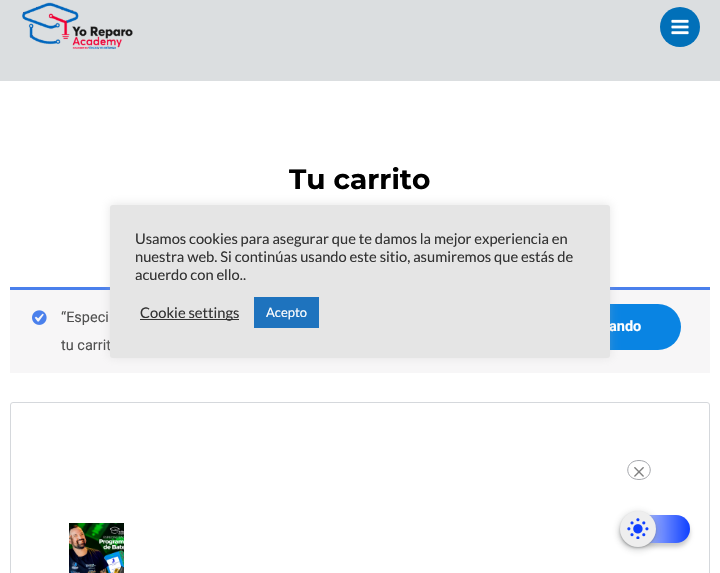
#include "include/core/SkBlurTypes.h"
#include "include/core/SkCanvas.h"
#include "include/core/SkData.h"
#include "include/core/SkFont.h"
#include "include/core/SkFontMgr.h"
#include "include/core/SkImage.h"
#include "include/core/SkMaskFilter.h"
#include "include/core/SkPaint.h"
#include "include/core/SkPathBuilder.h"
#include "include/core/SkTextBlob.h"
#include "include/effects/SkDashPathEffect.h"
#include "include/effects/SkGradientShader.h"
#include "include/utils/SkParsePath.h"

extern sk_sp<SkFontMgr> fontMgr;

void draw(SkCanvas* canvas) {
    SkPaint p;
    p.setAntiAlias(true);
    auto font = [&](const char* family, int weight, float size, bool italic = false) {
        SkFontStyle style(weight, SkFontStyle::kNormal_Width,
            italic ? SkFontStyle::kItalic_Slant : SkFontStyle::kUpright_Slant);
        SkFont result(fontMgr->matchFamilyStyle(family, style), size);
        result.setSubpixel(true);
        return result;
    };
    auto drawPhoto = [&](const char* path, float l, float t, float r, float b) {
        auto image = SkImages::DeferredFromEncodedData(SkData::MakeFromFileName(path));
        canvas->drawImageRect(image, SkRect::MakeLTRB(l, t, r, b), SkSamplingOptions());
    };
    canvas->clear(0xFFFFFFFF);
    p.setColor(0xFFDBDEE0);
    canvas->drawRect(SkRect::MakeLTRB(0, 0, 720, 81), p);
    drawPhoto("media/1.png", 22, 2, 133, 49);
    p.setColor(0xFF0170B9);
    canvas->drawCircle(680, 27, 20, p);
    drawPhoto("media/2.png", 671, 19, 689, 35);
    auto font1 = font("Montserrat", 700, 28);
    p.setColor(0xFF000000);
    canvas->drawString("Tu carrito", 289, 189, font1, p);
    p.setColor(0xFFF7F6F7);
    canvas->drawRect(SkRect::MakeLTRB(10, 290, 710, 373), p);
    p.setColor(0xFF4A80EC);
    canvas->drawRect(SkRect::MakeLTRB(10, 287, 710, 290), p);
    drawPhoto("media/3.png", 32, 310, 47, 325);
    auto font2 = font("Roboto", 400, 14.5f);
    p.setColor(0xFF515151);
    canvas->drawString("“Especi", 61, 322, font2, p);
    p.setColor(0xFF0984E3);
    canvas->drawRoundRect(SkRect::MakeLTRB(480, 304, 681, 350), 23, 23, p);
    auto font3 = font("Roboto", 700, 14.5f);
    p.setColor(0xFFFFFFFF);
    canvas->drawString("ando", 609, 331, font3, p);
    p.setColor(0xFF515151);
    canvas->drawString("tu carrit", 61, 350, font2, p);
    p.setStyle(SkPaint::kStroke_Style);
    p.setStrokeWidth(1);
    p.setColor(0xFFD5D8DC);
    canvas->drawRoundRect(SkRect::MakeLTRB(10.5f, 402.5f, 709.5f, 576.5f), 2.5f, 2.5f, p);
    p.setColor(0xFFA5A7AC);
    canvas->drawPath(SkPathBuilder().moveTo(639, 460.5f).cubicTo(654, 460.5f, 654, 479.5f, 639, 479.5f).cubicTo(624, 479.5f, 624, 460.5f, 639, 460.5f).close().detach(), p);
    drawPhoto("media/4.png", 634, 467, 644, 477);
    drawPhoto("media/5.png", 69, 523, 124, 573);
    p.setStyle(SkPaint::kFill_Style);
    p.setColor(0x4DACABAB);
    p.setMaskFilter(SkMaskFilter::MakeBlur(kNormal_SkBlurStyle, 5));
    canvas->drawRoundRect(SkRect::MakeLTRB(110, 204, 610, 357), 3, 3, p);
    p.setMaskFilter(nullptr);
    p.setColor(0xFFE5E5E5);
    canvas->drawRoundRect(SkRect::MakeLTRB(110, 205, 610, 358), 3, 3, p);
    auto font4 = font("Lato", 400, 14.7f);
    p.setColor(0xFF333333);
    {
        const struct { const char* s; float x, y; } items[] = {
            {"Usamos cookies para asegurar que te damos la mejor experiencia en", 135, 244},
            {"nuestra web. Si continúas usando este sitio, asumiremos que estás de", 135, 262},
            {"acuerdo con ello..", 135, 280},
        };
        for (auto [s, x, y] : items) {
            canvas->drawString(s, x, y, font4, p);
        }
    }
    canvas->drawRect(SkRect::MakeLTRB(140, 319, 239, 320), p);
    canvas->drawString("Cookie settings", 140, 318, font4, p);
    p.setColor(0xFF1E73BE);
    canvas->drawRect(SkRect::MakeLTRB(254, 297, 319, 328), p);
    auto font5 = font("Lato", 400, 13);
    p.setColor(0xFFFFFFFF);
    canvas->drawString("Acepto", 266, 317, font5, p);
    p.setColor(0x33000000);
    p.setMaskFilter(SkMaskFilter::MakeBlur(kNormal_SkBlurStyle, 2));
    canvas->drawRoundRect(SkRect::MakeLTRB(620, 519, 690, 547), 14, 14, p);
    p.setMaskFilter(nullptr);
    {
        const SkColor colors[] = {0xFFFFFFFF, 0xFF0F40FF};
        const float stops[] = {0, 1};
        const SkPoint ends[] = {{620, 529}, {690, 529}};
        p.setShader(SkGradientShader::MakeLinear(ends, colors, stops, 2, SkTileMode::kClamp));
        p.setAlpha(255);
    }
    canvas->drawRoundRect(SkRect::MakeLTRB(620, 515, 690, 543), 14, 14, p);
    p.setShader(nullptr);
    p.setColor(0x263C4043);
    p.setMaskFilter(SkMaskFilter::MakeBlur(kNormal_SkBlurStyle, 3));
    canvas->drawRoundRect(SkRect::MakeLTRB(618, 511, 658, 551), 20, 20, p);
    p.setMaskFilter(nullptr);
    p.setColor(0x4D3C4043);
    p.setMaskFilter(SkMaskFilter::MakeBlur(kNormal_SkBlurStyle, 1));
    canvas->drawRoundRect(SkRect::MakeLTRB(620, 512, 656, 548), 18, 18, p);
    p.setMaskFilter(nullptr);
    p.setColor(0xFFEEEEEE);
    canvas->drawCircle(638, 529, 18, p);
    drawPhoto("media/6.png", 627, 518, 649, 539);
}
